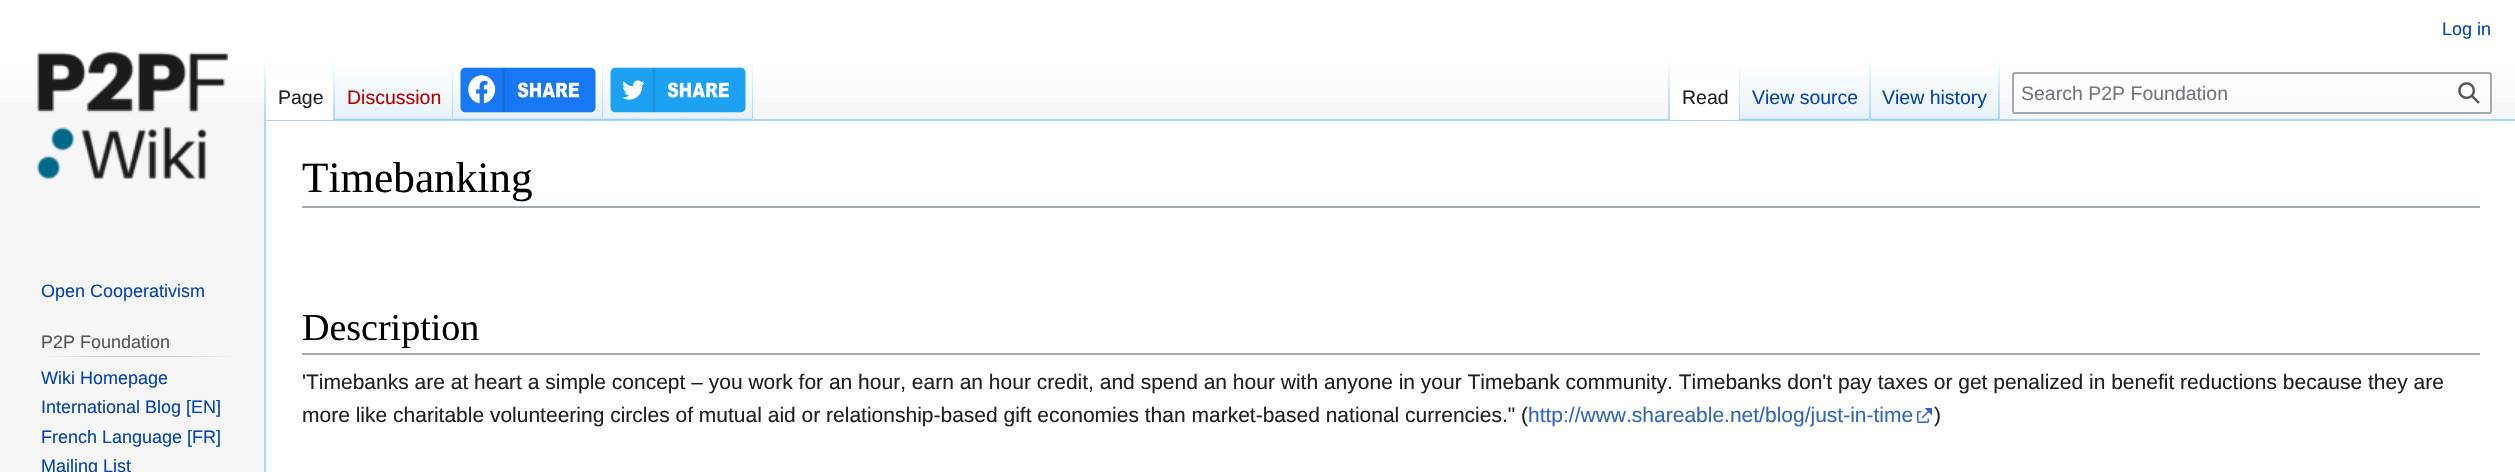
#include "include/core/SkBlurTypes.h"
#include "include/core/SkCanvas.h"
#include "include/core/SkData.h"
#include "include/core/SkFont.h"
#include "include/core/SkFontMgr.h"
#include "include/core/SkImage.h"
#include "include/core/SkMaskFilter.h"
#include "include/core/SkPaint.h"
#include "include/core/SkPathBuilder.h"
#include "include/core/SkTextBlob.h"
#include "include/effects/SkDashPathEffect.h"
#include "include/effects/SkGradientShader.h"
#include "include/utils/SkParsePath.h"

extern sk_sp<SkFontMgr> fontMgr;

void draw(SkCanvas* canvas) {
    SkPaint p;
    p.setAntiAlias(true);
    auto font = [&](const char* family, int weight, float size, bool italic = false) {
        SkFontStyle style(weight, SkFontStyle::kNormal_Width,
            italic ? SkFontStyle::kItalic_Slant : SkFontStyle::kUpright_Slant);
        SkFont result(fontMgr->matchFamilyStyle(family, style), size);
        result.setSubpixel(true);
        return result;
    };
    auto drawPhoto = [&](const char* path, float l, float t, float r, float b) {
        auto image = SkImages::DeferredFromEncodedData(SkData::MakeFromFileName(path));
        canvas->drawImageRect(image, SkRect::MakeLTRB(l, t, r, b), SkSamplingOptions());
    };
    canvas->clear(0xFFF6F6F6);
    {
        const SkColor colors[] = {0xFFFFFFFF, 0xFFF6F6F6};
        const float stops[] = {0.5f, 1};
        const SkPoint ends[] = {{1258, 0}, {1258, 120}};
        p.setShader(SkGradientShader::MakeLinear(ends, colors, stops, 2, SkTileMode::kClamp));
        p.setAlpha(255);
    }
    canvas->drawRect(SkRect::MakeLTRB(0, 0, 2515, 103), p);
    auto font1 = font("Liberation Sans", 400, 18);
    p.setShader(nullptr);
    p.setColor(0xFF0645AD);
    canvas->drawString("Log in", 2442, 35, font1, p);
    p.setColor(0xFFA7D7F9);
    canvas->drawRect(SkRect::MakeLTRB(264, 119, 2515, 121), p);
    canvas->drawRect(SkRect::MakeLTRB(264, 119, 266, 472), p);
    {
        const SkColor colors[] = {0x00A7D7F9, 0xFFA7D7F9};
        const float stops[] = {0, 1};
        const SkPoint ends[] = {{265, 60}, {265, 120}};
        p.setShader(SkGradientShader::MakeLinear(ends, colors, stops, 2, SkTileMode::kClamp));
        p.setAlpha(255);
    }
    canvas->drawRect(SkRect::MakeLTRB(264, 60, 266, 120), p);
    p.setShader(nullptr);
    p.setColor(0xFFFFFFFF);
    canvas->drawRect(SkRect::MakeLTRB(266, 77, 333, 120), p);
    {
        const SkColor colors[] = {0xFFFFFFFF, 0xFFA7D7F9};
        const float stops[] = {0, 1};
        const SkPoint ends[] = {{334, 60}, {334, 120}};
        p.setShader(SkGradientShader::MakeLinear(ends, colors, stops, 2, SkTileMode::kClamp));
        p.setAlpha(255);
    }
    canvas->drawRect(SkRect::MakeLTRB(333, 60, 335, 120), p);
    auto font2 = font("Liberation Sans", 400, 19.5f);
    p.setShader(nullptr);
    p.setColor(0xFF202122);
    canvas->drawString("Page", 278, 104, font2, p);
    {
        const SkColor colors[] = {0xFF77C1F6, 0xFFE8F2F8, 0xFFFFFFFF};
        const float stops[] = {0, 0.03f, 1};
        const SkPoint ends[] = {{394, 120}, {394, 60}};
        p.setShader(SkGradientShader::MakeLinear(ends, colors, stops, 3, SkTileMode::kClamp));
        p.setAlpha(255);
    }
    canvas->drawRect(SkRect::MakeLTRB(335, 69, 453, 120), p);
    {
        const SkColor colors[] = {0x00A7D7F9, 0xFFA7D7F9};
        const float stops[] = {0, 1};
        const SkPoint ends[] = {{452, 60}, {452, 120}};
        p.setShader(SkGradientShader::MakeLinear(ends, colors, stops, 2, SkTileMode::kClamp));
        p.setAlpha(255);
    }
    canvas->drawRect(SkRect::MakeLTRB(452, 60, 453, 120), p);
    p.setShader(nullptr);
    p.setColor(0xFFBA0000);
    canvas->drawString("Discussion", 347, 104, font2, p);
    {
        const SkColor colors[] = {0xFF77C1F6, 0xFFE8F2F8, 0xFFFFFFFF};
        const float stops[] = {0, 0.03f, 1};
        const SkPoint ends[] = {{528, 120}, {528, 60}};
        p.setShader(SkGradientShader::MakeLinear(ends, colors, stops, 3, SkTileMode::kClamp));
        p.setAlpha(255);
    }
    canvas->drawRect(SkRect::MakeLTRB(453, 69, 603, 120), p);
    {
        const SkColor colors[] = {0x00A7D7F9, 0xFFA7D7F9};
        const float stops[] = {0, 1};
        const SkPoint ends[] = {{602, 60}, {602, 120}};
        p.setShader(SkGradientShader::MakeLinear(ends, colors, stops, 2, SkTileMode::kClamp));
        p.setAlpha(255);
    }
    canvas->drawRect(SkRect::MakeLTRB(602, 60, 603, 120), p);
    drawPhoto("media/1.png", 460, 67, 596, 113);
    {
        const SkColor colors[] = {0xFF77C1F6, 0xFFE8F2F8, 0xFFFFFFFF};
        const float stops[] = {0, 0.03f, 1};
        const SkPoint ends[] = {{678, 120}, {678, 60}};
        p.setShader(SkGradientShader::MakeLinear(ends, colors, stops, 3, SkTileMode::kClamp));
        p.setAlpha(255);
    }
    canvas->drawRect(SkRect::MakeLTRB(603, 69, 753, 120), p);
    {
        const SkColor colors[] = {0x00A7D7F9, 0xFFA7D7F9};
        const float stops[] = {0, 1};
        const SkPoint ends[] = {{752, 60}, {752, 120}};
        p.setShader(SkGradientShader::MakeLinear(ends, colors, stops, 2, SkTileMode::kClamp));
        p.setAlpha(255);
    }
    canvas->drawRect(SkRect::MakeLTRB(752, 60, 753, 120), p);
    drawPhoto("media/2.png", 610, 67, 746, 113);
    {
        const SkColor colors[] = {0x00A7D7F9, 0xFFA7D7F9};
        const float stops[] = {0, 1};
        const SkPoint ends[] = {{1669, 60}, {1669, 120}};
        p.setShader(SkGradientShader::MakeLinear(ends, colors, stops, 2, SkTileMode::kClamp));
        p.setAlpha(255);
    }
    canvas->drawRect(SkRect::MakeLTRB(1668, 60, 1670, 120), p);
    p.setShader(nullptr);
    p.setColor(0xFFFFFFFF);
    canvas->drawRect(SkRect::MakeLTRB(1670, 77, 1739, 120), p);
    {
        const SkColor colors[] = {0xFFFFFFFF, 0xFFA7D7F9};
        const float stops[] = {0, 1};
        const SkPoint ends[] = {{1739, 60}, {1739, 120}};
        p.setShader(SkGradientShader::MakeLinear(ends, colors, stops, 2, SkTileMode::kClamp));
        p.setAlpha(255);
    }
    canvas->drawRect(SkRect::MakeLTRB(1739, 60, 1740, 120), p);
    p.setShader(nullptr);
    p.setColor(0xFF202122);
    canvas->drawString("Read", 1682, 104, font2, p);
    {
        const SkColor colors[] = {0xFF77C1F6, 0xFFE8F2F8, 0xFFFFFFFF};
        const float stops[] = {0, 0.03f, 1};
        const SkPoint ends[] = {{1805, 120}, {1805, 60}};
        p.setShader(SkGradientShader::MakeLinear(ends, colors, stops, 3, SkTileMode::kClamp));
        p.setAlpha(255);
    }
    canvas->drawRect(SkRect::MakeLTRB(1740, 69, 1871, 120), p);
    {
        const SkColor colors[] = {0x00A7D7F9, 0xFFA7D7F9};
        const float stops[] = {0, 1};
        const SkPoint ends[] = {{1870, 60}, {1870, 120}};
        p.setShader(SkGradientShader::MakeLinear(ends, colors, stops, 2, SkTileMode::kClamp));
        p.setAlpha(255);
    }
    canvas->drawRect(SkRect::MakeLTRB(1869, 60, 1871, 120), p);
    p.setShader(nullptr);
    p.setColor(0xFF0645AD);
    canvas->drawString("View source", 1752, 104, font2, p);
    {
        const SkColor colors[] = {0xFF77C1F6, 0xFFE8F2F8, 0xFFFFFFFF};
        const float stops[] = {0, 0.03f, 1};
        const SkPoint ends[] = {{1935, 120}, {1935, 60}};
        p.setShader(SkGradientShader::MakeLinear(ends, colors, stops, 3, SkTileMode::kClamp));
        p.setAlpha(255);
    }
    canvas->drawRect(SkRect::MakeLTRB(1871, 69, 2000, 120), p);
    {
        const SkColor colors[] = {0x00A7D7F9, 0xFFA7D7F9};
        const float stops[] = {0, 1};
        const SkPoint ends[] = {{1999, 60}, {1999, 120}};
        p.setShader(SkGradientShader::MakeLinear(ends, colors, stops, 2, SkTileMode::kClamp));
        p.setAlpha(255);
    }
    canvas->drawRect(SkRect::MakeLTRB(1998, 60, 2000, 120), p);
    p.setShader(nullptr);
    p.setColor(0xFF0645AD);
    canvas->drawString("View history", 1882, 104, font2, p);
    p.setColor(0x80FFFFFF);
    canvas->drawRoundRect(SkRect::MakeLTRB(2013, 73, 2491, 113), 2, 2, p);
    p.setStyle(SkPaint::kStroke_Style);
    p.setStrokeWidth(2);
    p.setColor(0xFFA2A9B1);
    canvas->drawRoundRect(SkRect::MakeLTRB(2013, 73, 2491, 113), 2, 2, p);
    p.setStyle(SkPaint::kFill_Style);
    p.setColor(0xFF72777D);
    canvas->drawString("Search P2P Foundation", 2021, 100, font2, p);
    drawPhoto("media/3.png", 2458, 82, 2480, 104);
    drawPhoto("media/4.png", 37, 51, 228, 180);
    p.setColor(0xFF0645AD);
    canvas->drawString("Open Cooperativism", 41, 297, font1, p);
    {
        const SkColor colors[] = {0xFFF6F6F6, 0xFFC8CCD1, 0xFFC8CCD1, 0xFFF6F6F6};
        const float stops[] = {0, 0.33f, 0.66f, 1};
        const SkPoint ends[] = {{41, 356}, {237, 356}};
        p.setShader(SkGradientShader::MakeLinear(ends, colors, stops, 4, SkTileMode::kClamp));
        p.setAlpha(255);
    }
    canvas->drawRect(SkRect::MakeLTRB(41, 356, 237, 357), p);
    p.setShader(nullptr);
    p.setColor(0xFF54595D);
    canvas->drawString("P2P Foundation", 41, 348, font1, p);
    p.setColor(0xFF0645AD);
    {
        const struct { const char* s; float x, y; } items[] = {
            {"Wiki Homepage", 41, 384},
            {"International Blog [EN]", 41, 413},
            {"French Language [FR]", 41, 443},
            {"Mailing List", 41, 472},
        };
        for (auto [s, x, y] : items) {
            canvas->drawString(s, x, y, font1, p);
        }
    }
    p.setColor(0xFFFFFFFF);
    canvas->drawRect(SkRect::MakeLTRB(266, 121, 2515, 472), p);
    p.setColor(0xFFA2A9B1);
    canvas->drawRect(SkRect::MakeLTRB(302, 206, 2480, 208), p);
    auto font3 = font("Liberation Serif", 400, 43.25f);
    p.setColor(0xFF000000);
    canvas->drawString("Timebanking", 302, 192, font3, p);
    p.setColor(0xFFA2A9B1);
    canvas->drawRect(SkRect::MakeLTRB(302, 353, 2480, 355), p);
    auto font4 = font("Liberation Serif", 400, 38);
    p.setColor(0xFF000000);
    canvas->drawString("Description", 302, 340, font4, p);
    auto font5 = font("Liberation Sans", 400, 21);
    p.setColor(0xFF202122);
    canvas->drawString("'Timebanks are at heart a simple concept – you work for an hour, earn an hour credit, and spend an hour with anyone in your Timebank community. Timebanks don't pay taxes or get penalized in benefit reductions because they are", 302, 389, font5, p);
    canvas->drawString("more like charitable volunteering circles of mutual aid or relationship-based gift economies than market-based national currencies.\" (", 302, 422, font5, p);
    p.setColor(0xFF3366BB);
    canvas->drawString("http://www.shareable.net/blog/just-in-time", 1528, 422, font5, p);
    drawPhoto("media/5.png", 1917, 408, 1932, 423);
    p.setColor(0xFF202122);
    canvas->drawString(")", 1934, 422, font5, p);
}
